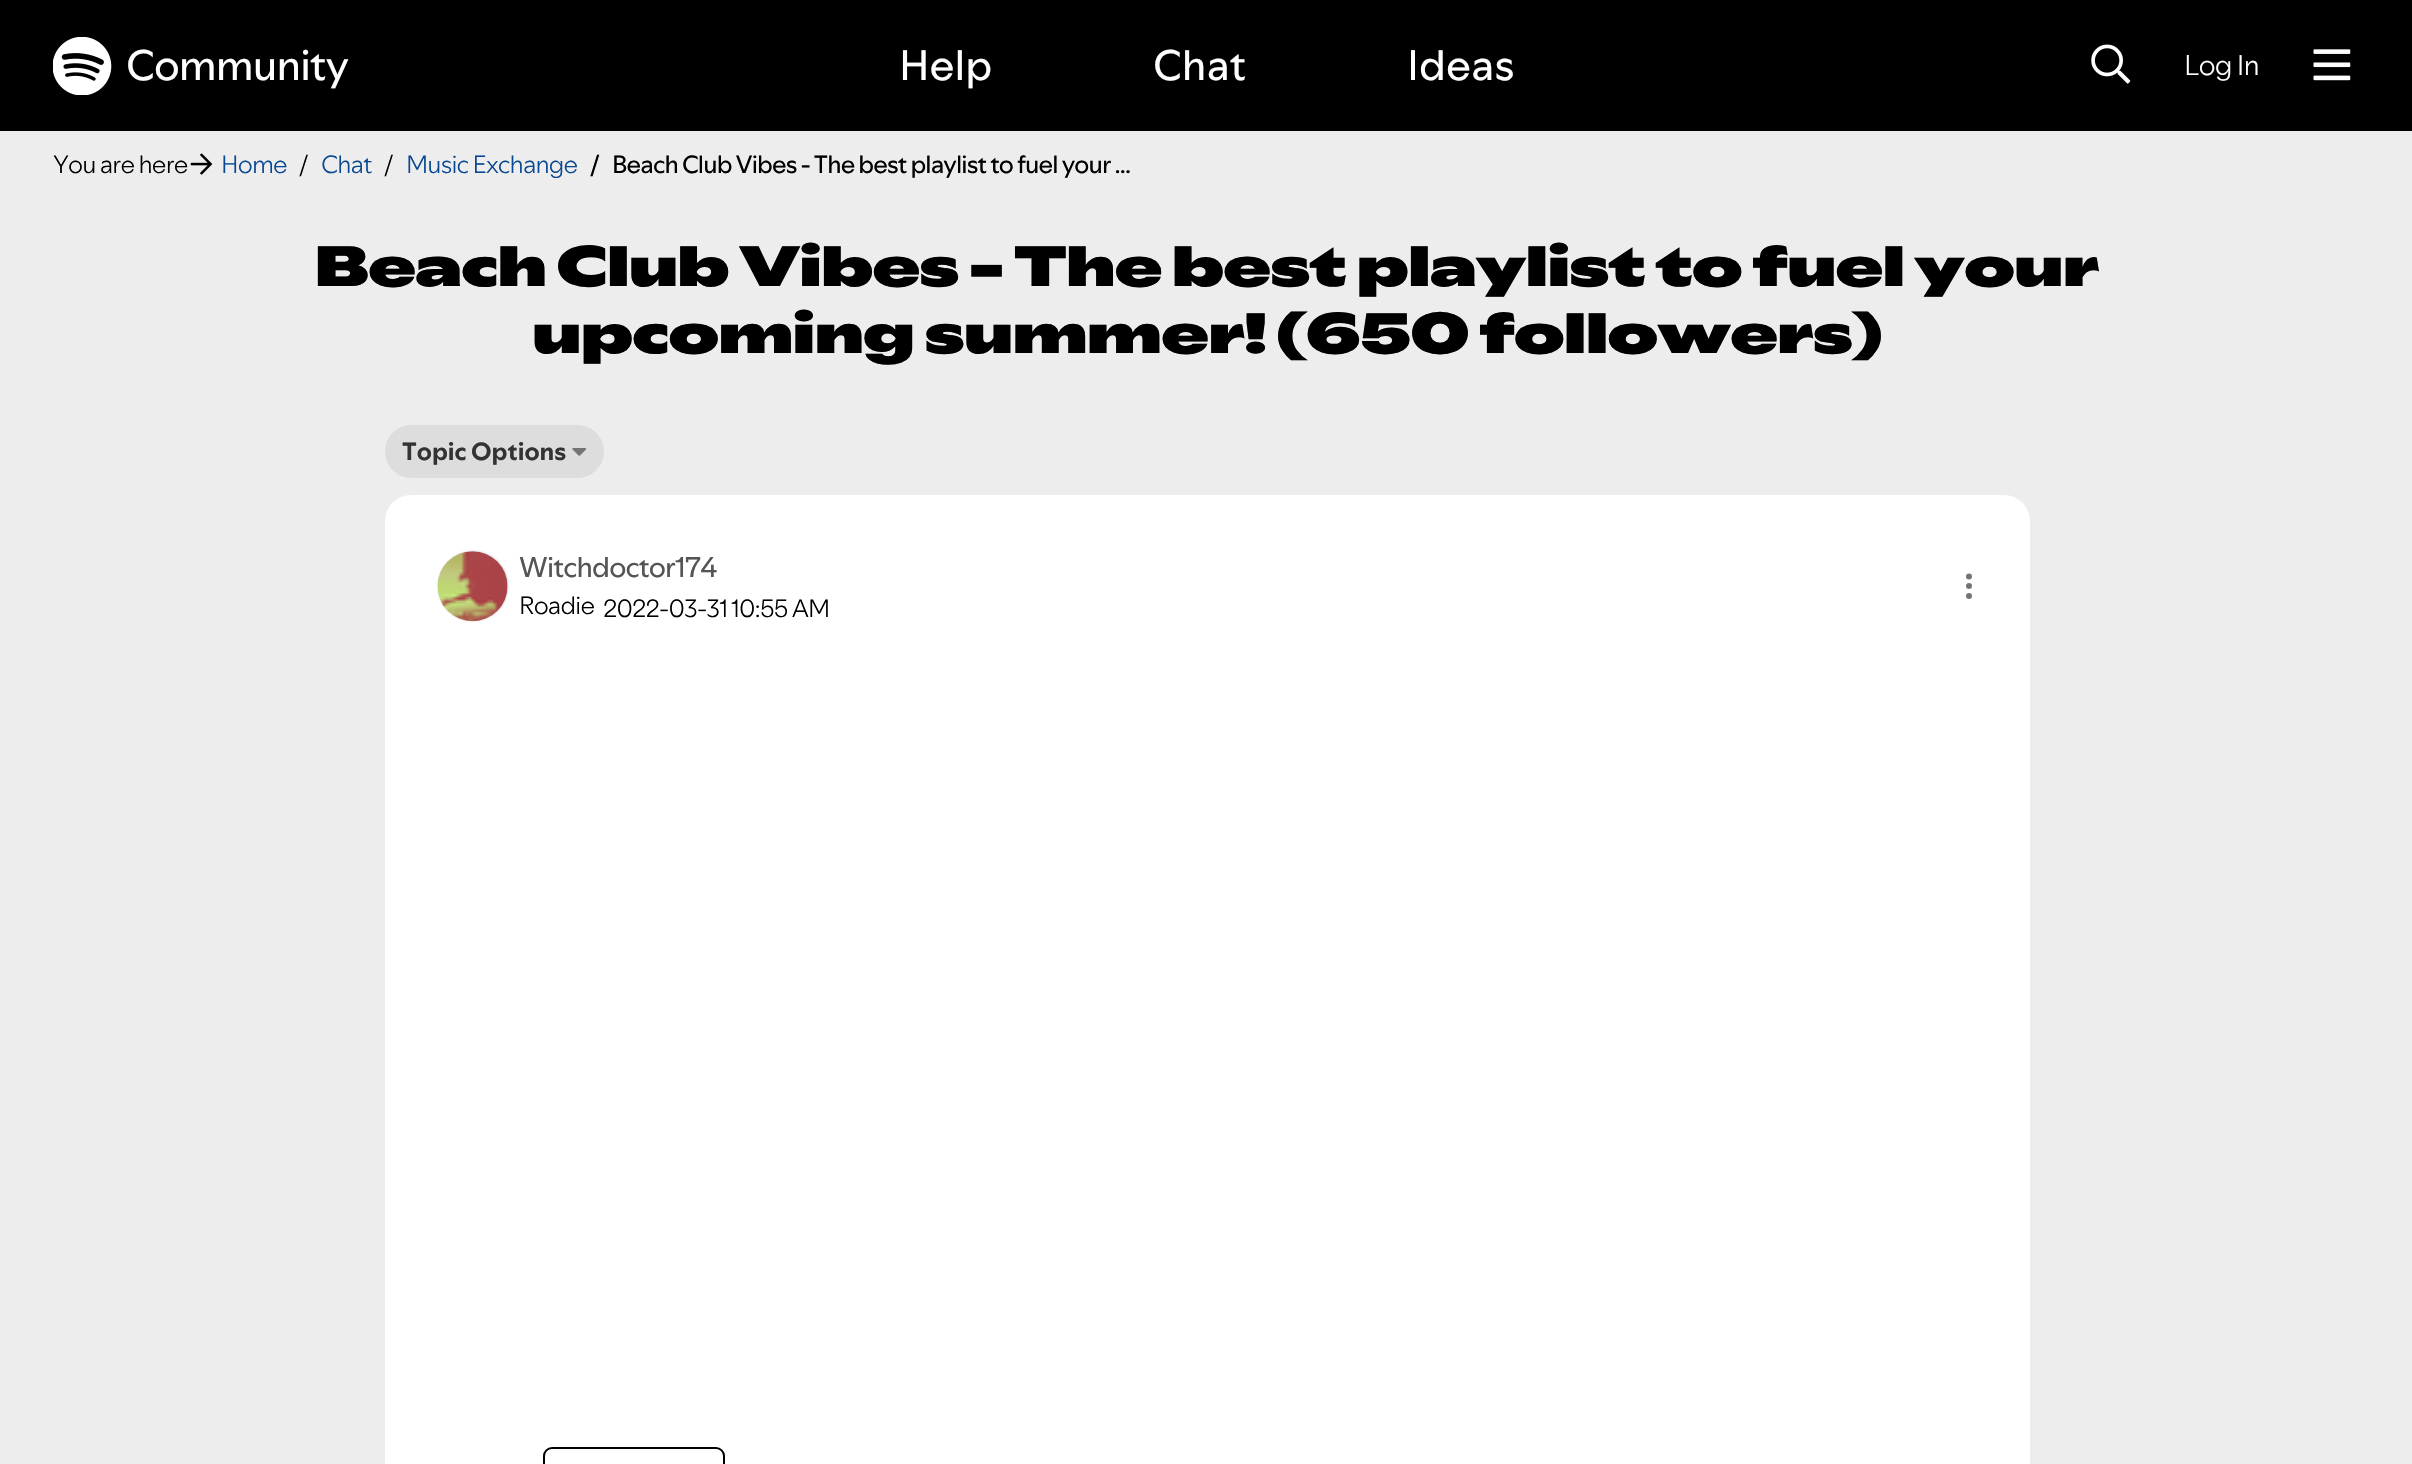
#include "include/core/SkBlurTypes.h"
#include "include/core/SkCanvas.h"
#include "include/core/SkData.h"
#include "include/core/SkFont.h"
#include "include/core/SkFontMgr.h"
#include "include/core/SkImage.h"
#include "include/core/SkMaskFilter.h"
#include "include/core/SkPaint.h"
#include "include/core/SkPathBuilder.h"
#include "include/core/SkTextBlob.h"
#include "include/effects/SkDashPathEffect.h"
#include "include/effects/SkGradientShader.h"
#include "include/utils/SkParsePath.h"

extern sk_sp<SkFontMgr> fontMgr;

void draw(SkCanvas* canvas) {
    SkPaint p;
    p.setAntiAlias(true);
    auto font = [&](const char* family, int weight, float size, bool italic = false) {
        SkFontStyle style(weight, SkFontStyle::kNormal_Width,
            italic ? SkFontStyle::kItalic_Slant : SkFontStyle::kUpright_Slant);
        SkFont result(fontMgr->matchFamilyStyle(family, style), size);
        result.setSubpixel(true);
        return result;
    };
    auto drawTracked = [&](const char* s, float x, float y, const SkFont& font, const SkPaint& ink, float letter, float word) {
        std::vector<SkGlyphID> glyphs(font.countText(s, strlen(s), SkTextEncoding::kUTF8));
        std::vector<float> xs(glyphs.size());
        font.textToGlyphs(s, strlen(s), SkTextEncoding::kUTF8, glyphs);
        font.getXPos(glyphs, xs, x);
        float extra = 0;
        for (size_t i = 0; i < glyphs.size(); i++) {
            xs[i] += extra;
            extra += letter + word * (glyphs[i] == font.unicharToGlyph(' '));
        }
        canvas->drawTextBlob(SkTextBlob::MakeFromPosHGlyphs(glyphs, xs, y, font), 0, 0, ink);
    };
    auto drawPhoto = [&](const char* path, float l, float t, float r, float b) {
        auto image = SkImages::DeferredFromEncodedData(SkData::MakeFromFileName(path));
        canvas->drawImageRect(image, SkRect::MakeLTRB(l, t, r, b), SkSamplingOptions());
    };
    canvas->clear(0xFFEDEDED);
    p.setColor(0xFF000000);
    canvas->drawRect(SkRect::MakeLTRB(0, 0, 2412, 131), p);
    drawPhoto("media/1.png", 53, 37, 112, 95);
    auto font1 = font("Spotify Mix", 400, 42);
    p.setColor(0xFFFFFFFF);
    drawTracked("Community", 126, 80, font1, p, -0.88f, 0);
    {
        const struct { const char* s; float x, y; } items[] = {
            {"Help", 899, 80},
            {"Chat", 1153, 80},
            {"Ideas", 1407, 80},
        };
        for (auto [s, x, y] : items) {
            canvas->drawString(s, x, y, font1, p);
        }
    }
    drawPhoto("media/2.png", 2091, 44, 2131, 84);
    auto font2 = font("Spotify Mix", 300, 28);
    drawTracked("Log In", 2184, 75, font2, p, -0.88f, 0);
    drawPhoto("media/3.png", 2313, 49, 2351, 81);
    auto font3 = font("Spotify Mix", 300, 24.5f);
    p.setColor(0xFF000000);
    drawTracked("You are here", 53, 173, font3, p, -0.88f, 0);
    drawPhoto("media/4.png", 190, 153, 213, 175);
    p.setColor(0xFF084791);
    drawTracked("Home", 221, 173, font3, p, -0.88f, 0);
    p.setColor(0xFF000000);
    drawTracked("/", 299, 173, font3, p, -0.88f, 0);
    p.setColor(0xFF084791);
    drawTracked("Chat", 321, 173, font3, p, -0.88f, 0);
    p.setColor(0xFF000000);
    drawTracked("/", 384, 173, font3, p, -0.88f, 0);
    p.setColor(0xFF084791);
    drawTracked("Music Exchange", 406, 173, font3, p, -0.88f, 0);
    auto font4 = font("Spotify Mix", 400, 24.5f);
    p.setColor(0xFF000000);
    drawTracked("/", 590, 173, font4, p, -0.88f, 0);
    drawTracked("Beach Club Vibes - The best playlist to fuel your ...", 612, 173, font4, p, -0.88f, 0);
    auto font5 = font("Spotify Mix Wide", 900, 56);
    drawTracked("Beach Club Vibes - The best playlist to fuel your", 314, 286, font5, p, -0.88f, 0);
    drawTracked("upcoming summer! (650 followers)", 532, 353, font5, p, -0.88f, 0);
    p.setColor(0xFFDDDDDD);
    canvas->drawRoundRect(SkRect::MakeLTRB(385, 425, 604, 478), 26.5f, 26.5f, p);
    auto font6 = font("Spotify Mix", 700, 24.5f);
    p.setColor(0xFF333333);
    canvas->drawString("Topic Options", 402, 460, font6, p);
    drawPhoto("media/5.png", 572, 448, 587, 456);
    p.setColor(0xFFFFFFFF);
    canvas->drawRoundRect(SkRect::MakeLTRB(385, 495, 2030, 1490), 26, 26, p);
    p.setColor(0xFFC4C4C4);
    p.setMaskFilter(SkMaskFilter::MakeBlur(kNormal_SkBlurStyle, 1));
    canvas->drawRoundRect(SkRect::MakeLTRB(438, 551, 508, 621), 35, 35, p);
    p.setMaskFilter(nullptr);
    drawPhoto("media/6.png", 437, 551, 508, 622);
    auto font7 = font("Spotify Mix", 400, 28);
    p.setColor(0xFF555555);
    drawTracked("Witchdoctor174", 519, 577, font7, p, -0.88f, 0);
    p.setColor(0xFF000000);
    {
        const struct { const char* s; float x, y; } items[] = {
            {"Roadie", 519, 614},
            {"2022-03-31", 603, 617},
            {"10:55 AM", 731, 617},
        };
        for (auto [s, x, y] : items) {
            drawTracked(s, x, y, font3, p, -0.88f, 0);
        }
    }
    p.setColor(0xFF747474);
    canvas->drawCircle(1969, 576.5f, 3, p);
    canvas->drawCircle(1969, 586, 3, p);
    canvas->drawCircle(1969, 596, 3, p);
    p.setStyle(SkPaint::kStroke_Style);
    p.setStrokeWidth(2);
    p.setColor(0xFF000000);
    canvas->drawRoundRect(SkRect::MakeLTRB(544, 1448, 724, 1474), 8, 8, p);
}
